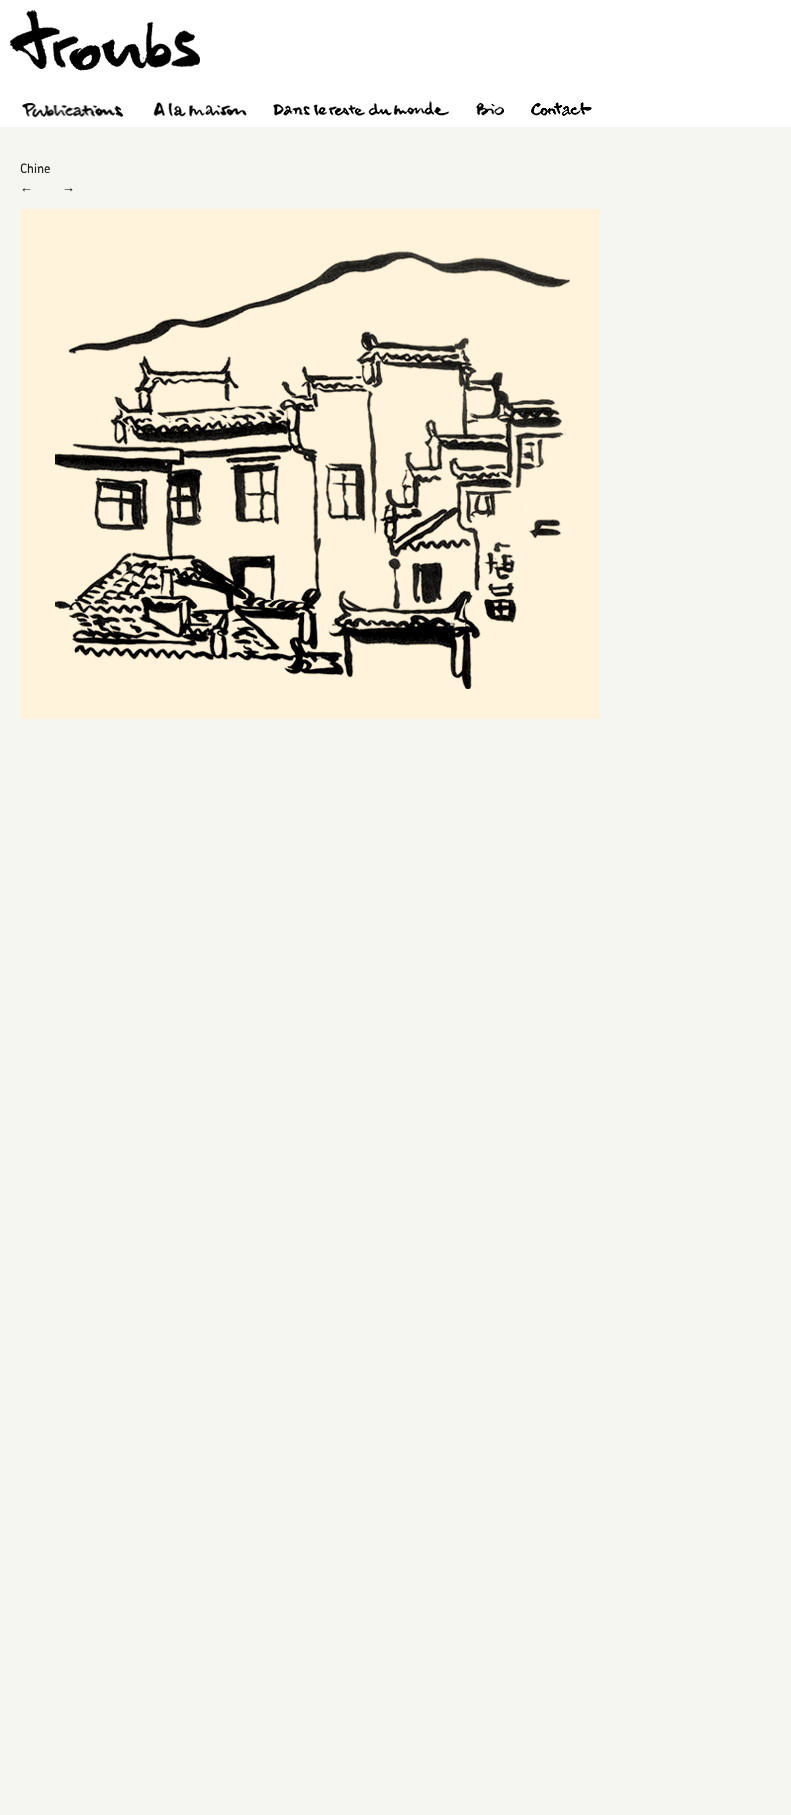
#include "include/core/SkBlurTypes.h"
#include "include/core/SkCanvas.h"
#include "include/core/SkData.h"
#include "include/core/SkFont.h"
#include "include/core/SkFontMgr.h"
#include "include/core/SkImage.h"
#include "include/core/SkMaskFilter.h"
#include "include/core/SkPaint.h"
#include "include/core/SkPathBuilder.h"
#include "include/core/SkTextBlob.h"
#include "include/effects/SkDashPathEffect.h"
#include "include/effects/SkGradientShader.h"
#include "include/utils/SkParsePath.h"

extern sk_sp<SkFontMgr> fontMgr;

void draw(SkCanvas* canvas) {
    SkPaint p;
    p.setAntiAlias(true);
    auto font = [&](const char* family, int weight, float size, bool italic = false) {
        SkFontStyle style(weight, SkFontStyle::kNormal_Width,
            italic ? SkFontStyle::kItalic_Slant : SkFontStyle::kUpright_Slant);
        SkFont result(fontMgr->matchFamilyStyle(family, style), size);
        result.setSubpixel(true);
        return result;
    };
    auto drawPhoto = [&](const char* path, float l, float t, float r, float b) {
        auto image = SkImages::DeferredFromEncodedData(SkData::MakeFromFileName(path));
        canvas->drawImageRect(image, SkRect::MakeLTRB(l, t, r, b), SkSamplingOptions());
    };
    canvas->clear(0xFFF6F6F1);
    p.setColor(0xFFFFFFFF);
    canvas->drawRect(SkRect::MakeLTRB(0, 0, 791, 127), p);
    drawPhoto("media/1.png", 10, 10, 200, 71);
    drawPhoto("media/2.png", 22, 103, 124, 118);
    drawPhoto("media/3.png", 153, 102, 247, 117);
    drawPhoto("media/4.png", 273, 101, 449, 116);
    drawPhoto("media/5.png", 475, 102, 504, 116);
    drawPhoto("media/6.png", 531, 102, 592, 116);
    auto font1 = font("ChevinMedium", 500, 13);
    p.setColor(0xFF222222);
    canvas->drawString("Chine", 20, 173, font1, p);
    auto font2 = font("Liberation Sans", 400, 13);
    canvas->drawString("←", 20, 192, font2, p);
    canvas->drawString("→", 62, 192, font2, p);
    drawPhoto("media/7.png", 20, 209, 600, 719);
}
